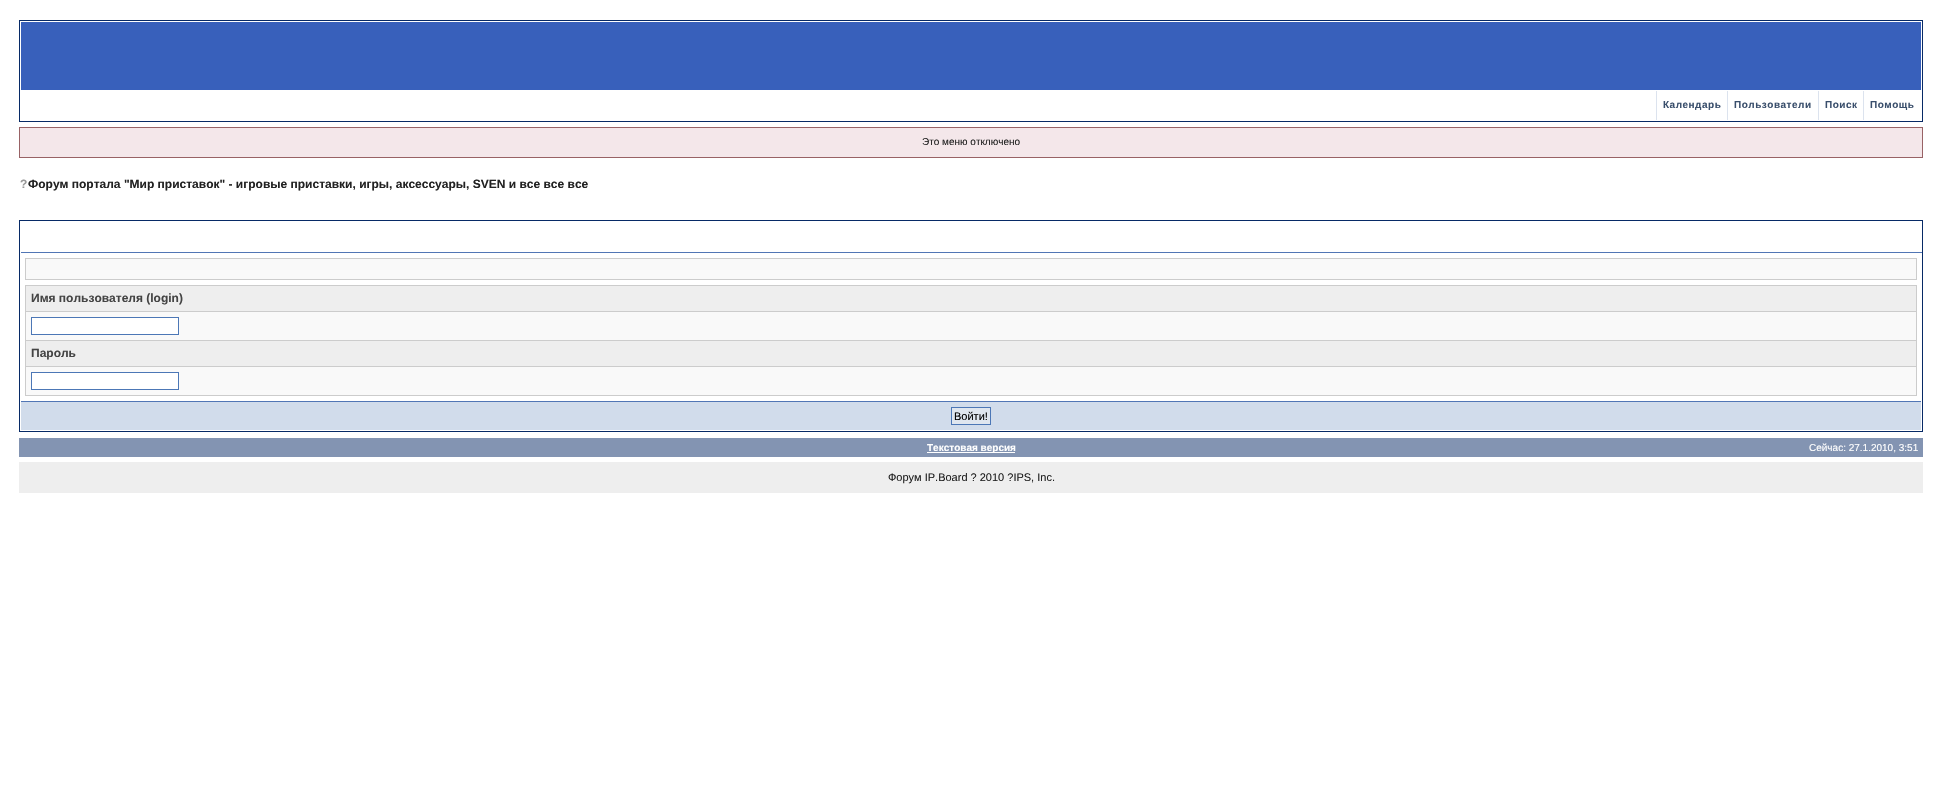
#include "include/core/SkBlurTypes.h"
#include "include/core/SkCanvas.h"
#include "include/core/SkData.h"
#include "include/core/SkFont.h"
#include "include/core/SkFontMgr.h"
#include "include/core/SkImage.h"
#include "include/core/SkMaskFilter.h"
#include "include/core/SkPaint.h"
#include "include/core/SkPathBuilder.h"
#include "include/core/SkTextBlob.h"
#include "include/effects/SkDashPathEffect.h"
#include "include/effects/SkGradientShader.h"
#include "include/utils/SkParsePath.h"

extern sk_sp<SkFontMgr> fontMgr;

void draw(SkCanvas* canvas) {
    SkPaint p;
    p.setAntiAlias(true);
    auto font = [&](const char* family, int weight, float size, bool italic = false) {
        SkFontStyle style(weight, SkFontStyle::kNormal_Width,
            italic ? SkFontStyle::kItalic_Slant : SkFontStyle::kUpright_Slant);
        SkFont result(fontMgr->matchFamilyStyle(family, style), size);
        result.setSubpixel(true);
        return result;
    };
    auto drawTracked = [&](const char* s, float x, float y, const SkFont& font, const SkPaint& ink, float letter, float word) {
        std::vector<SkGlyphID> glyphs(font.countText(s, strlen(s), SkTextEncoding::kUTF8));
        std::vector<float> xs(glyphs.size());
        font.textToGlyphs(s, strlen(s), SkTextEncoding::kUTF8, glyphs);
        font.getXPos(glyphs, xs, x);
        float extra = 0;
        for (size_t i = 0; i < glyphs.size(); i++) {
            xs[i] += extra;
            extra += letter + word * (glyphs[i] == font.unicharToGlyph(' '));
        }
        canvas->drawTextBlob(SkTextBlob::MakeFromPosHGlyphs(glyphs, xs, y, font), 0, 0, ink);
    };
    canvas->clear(0xFFFFFFFF);
    p.setStyle(SkPaint::kStroke_Style);
    p.setStrokeWidth(1);
    p.setColor(0xFF072A66);
    canvas->drawRect(SkRect::MakeLTRB(19.5f, 20.5f, 1922.5f, 121.5f), p);
    p.setStyle(SkPaint::kFill_Style);
    p.setColor(0xFF3860BB);
    canvas->drawRect(SkRect::MakeLTRB(21, 22, 1921, 90), p);
    p.setColor(0xFFDCE3EE);
    canvas->drawRect(SkRect::MakeLTRB(1656, 91, 1657, 120), p);
    auto font1 = font("Liberation Sans", 700, 10);
    p.setColor(0xFF3A4F6C);
    drawTracked("Календарь", 1663, 108, font1, p, 0.5f, 0);
    p.setColor(0xFFDCE3EE);
    canvas->drawRect(SkRect::MakeLTRB(1727, 91, 1728, 120), p);
    p.setColor(0xFF3A4F6C);
    drawTracked("Пользователи", 1734, 108, font1, p, 0.5f, 0);
    p.setColor(0xFFDCE3EE);
    canvas->drawRect(SkRect::MakeLTRB(1818, 91, 1819, 120), p);
    p.setColor(0xFF3A4F6C);
    drawTracked("Поиск", 1825, 108, font1, p, 0.5f, 0);
    p.setColor(0xFFDCE3EE);
    canvas->drawRect(SkRect::MakeLTRB(1863, 91, 1864, 120), p);
    p.setColor(0xFF3A4F6C);
    drawTracked("Помощь", 1870, 108, font1, p, 0.5f, 0);
    p.setColor(0xFFF4E7EA);
    canvas->drawRect(SkRect::MakeLTRB(19.5f, 127.5f, 1922.5f, 157.5f), p);
    p.setStyle(SkPaint::kStroke_Style);
    p.setColor(0xFF986265);
    canvas->drawRect(SkRect::MakeLTRB(19.5f, 127.5f, 1922.5f, 157.5f), p);
    auto font2 = font("Liberation Sans", 400, 10);
    p.setStyle(SkPaint::kFill_Style);
    p.setColor(0xFF222222);
    canvas->drawString("Это меню отключено", 922, 145, font2, p);
    auto font3 = font("Liberation Sans", 700, 12);
    p.setColor(0xFF999999);
    canvas->drawString("?", 20, 188, font3, p);
    p.setColor(0xFF222222);
    canvas->drawString("Форум портала \"Мир приставок\" - игровые приставки, игры, аксессуары, SVEN и все все все", 28, 188, font3, p);
    p.setStyle(SkPaint::kStroke_Style);
    p.setColor(0xFF072A66);
    canvas->drawRect(SkRect::MakeLTRB(19.5f, 220.5f, 1922.5f, 431.5f), p);
    p.setStyle(SkPaint::kFill_Style);
    p.setColor(0xFF5176B5);
    canvas->drawRect(SkRect::MakeLTRB(20, 252, 1922, 253), p);
    p.setColor(0xFFFFFFFF);
    canvas->drawRect(SkRect::MakeLTRB(20, 252, 21, 253), p);
    p.setColor(0xFFF9F9F9);
    canvas->drawRect(SkRect::MakeLTRB(25.5f, 258.5f, 1916.5f, 279.5f), p);
    p.setStyle(SkPaint::kStroke_Style);
    p.setColor(0xFFCCCCCC);
    canvas->drawRect(SkRect::MakeLTRB(25.5f, 258.5f, 1916.5f, 279.5f), p);
    p.setStyle(SkPaint::kFill_Style);
    {
        const struct { float l, t, r, b; SkColor color; } items[] = {
            {26, 312, 1916, 395, 0xFFF9F9F9},
            {1916, 285, 1917, 396, 0xFFCCCCCC},
            {25, 395, 1917, 396, 0xFFCCCCCC},
            {25, 285, 26, 396, 0xFFCCCCCC},
            {26, 286, 1916, 311, 0xFFEEEEEE},
            {26, 285, 1916, 286, 0xFFCCCCCC},
            {26, 311, 1916, 312, 0xFFCCCCCC},
        };
        for (auto [l, t, r, b, color] : items) {
            p.setColor(color);
            canvas->drawRect(SkRect::MakeLTRB(l, t, r, b), p);
        }
    }
    p.setColor(0xFF444444);
    canvas->drawString("Имя пользователя (login)", 31, 302, font3, p);
    p.setColor(0xFFFFFFFF);
    canvas->drawRect(SkRect::MakeLTRB(31.5f, 317.5f, 178.5f, 334.5f), p);
    p.setStyle(SkPaint::kStroke_Style);
    p.setColor(0xFF4C77B6);
    canvas->drawRect(SkRect::MakeLTRB(31.5f, 317.5f, 178.5f, 334.5f), p);
    p.setStyle(SkPaint::kFill_Style);
    {
        const struct { float l, t, r, b; SkColor color; } items[] = {
            {26, 341, 1916, 366, 0xFFEEEEEE},
            {26, 340, 1916, 341, 0xFFCCCCCC},
            {26, 366, 1916, 367, 0xFFCCCCCC},
        };
        for (auto [l, t, r, b, color] : items) {
            p.setColor(color);
            canvas->drawRect(SkRect::MakeLTRB(l, t, r, b), p);
        }
    }
    p.setColor(0xFF444444);
    canvas->drawString("Пароль", 31, 357, font3, p);
    p.setColor(0xFFFFFFFF);
    canvas->drawRect(SkRect::MakeLTRB(31.5f, 372.5f, 178.5f, 389.5f), p);
    p.setStyle(SkPaint::kStroke_Style);
    p.setColor(0xFF4C77B6);
    canvas->drawRect(SkRect::MakeLTRB(31.5f, 372.5f, 178.5f, 389.5f), p);
    p.setStyle(SkPaint::kFill_Style);
    {
        const struct { float l, t, r, b; SkColor color; } items[] = {
            {21, 402, 1921, 430, 0xFFD1DCEB},
            {20, 401, 1922, 402, 0xFF5176B5},
            {1921, 401, 1922, 402, 0xFFFFFFFF},
            {20, 401, 21, 402, 0xFFFFFFFF},
        };
        for (auto [l, t, r, b, color] : items) {
            p.setColor(color);
            canvas->drawRect(SkRect::MakeLTRB(l, t, r, b), p);
        }
    }
    p.setColor(0xFFDFE6EF);
    canvas->drawRect(SkRect::MakeLTRB(951.5f, 407.5f, 990.5f, 424.5f), p);
    p.setStyle(SkPaint::kStroke_Style);
    p.setColor(0xFF4C77B6);
    canvas->drawRect(SkRect::MakeLTRB(951.5f, 407.5f, 990.5f, 424.5f), p);
    auto font4 = font("Liberation Sans", 400, 11);
    p.setStyle(SkPaint::kFill_Style);
    p.setColor(0xFF000000);
    canvas->drawString("Войти!", 954, 420, font4, p);
    p.setColor(0xFF8394B2);
    canvas->drawRect(SkRect::MakeLTRB(19, 438, 1923, 457), p);
    p.setColor(0xFFFFFFFF);
    canvas->drawRect(SkRect::MakeLTRB(927, 452, 1015, 453), p);
    canvas->drawString("Текстовая версия", 927, 451, font1, p);
    canvas->drawString("Сейчас: 27.1.2010, 3:51", 1809, 451, font2, p);
    p.setColor(0xFFEEEEEE);
    canvas->drawRect(SkRect::MakeLTRB(19, 462, 1923, 493), p);
    p.setColor(0xFF222222);
    canvas->drawString("Форум IP.Board ? 2010 ?IPS, Inc.", 888, 481, font4, p);
}
